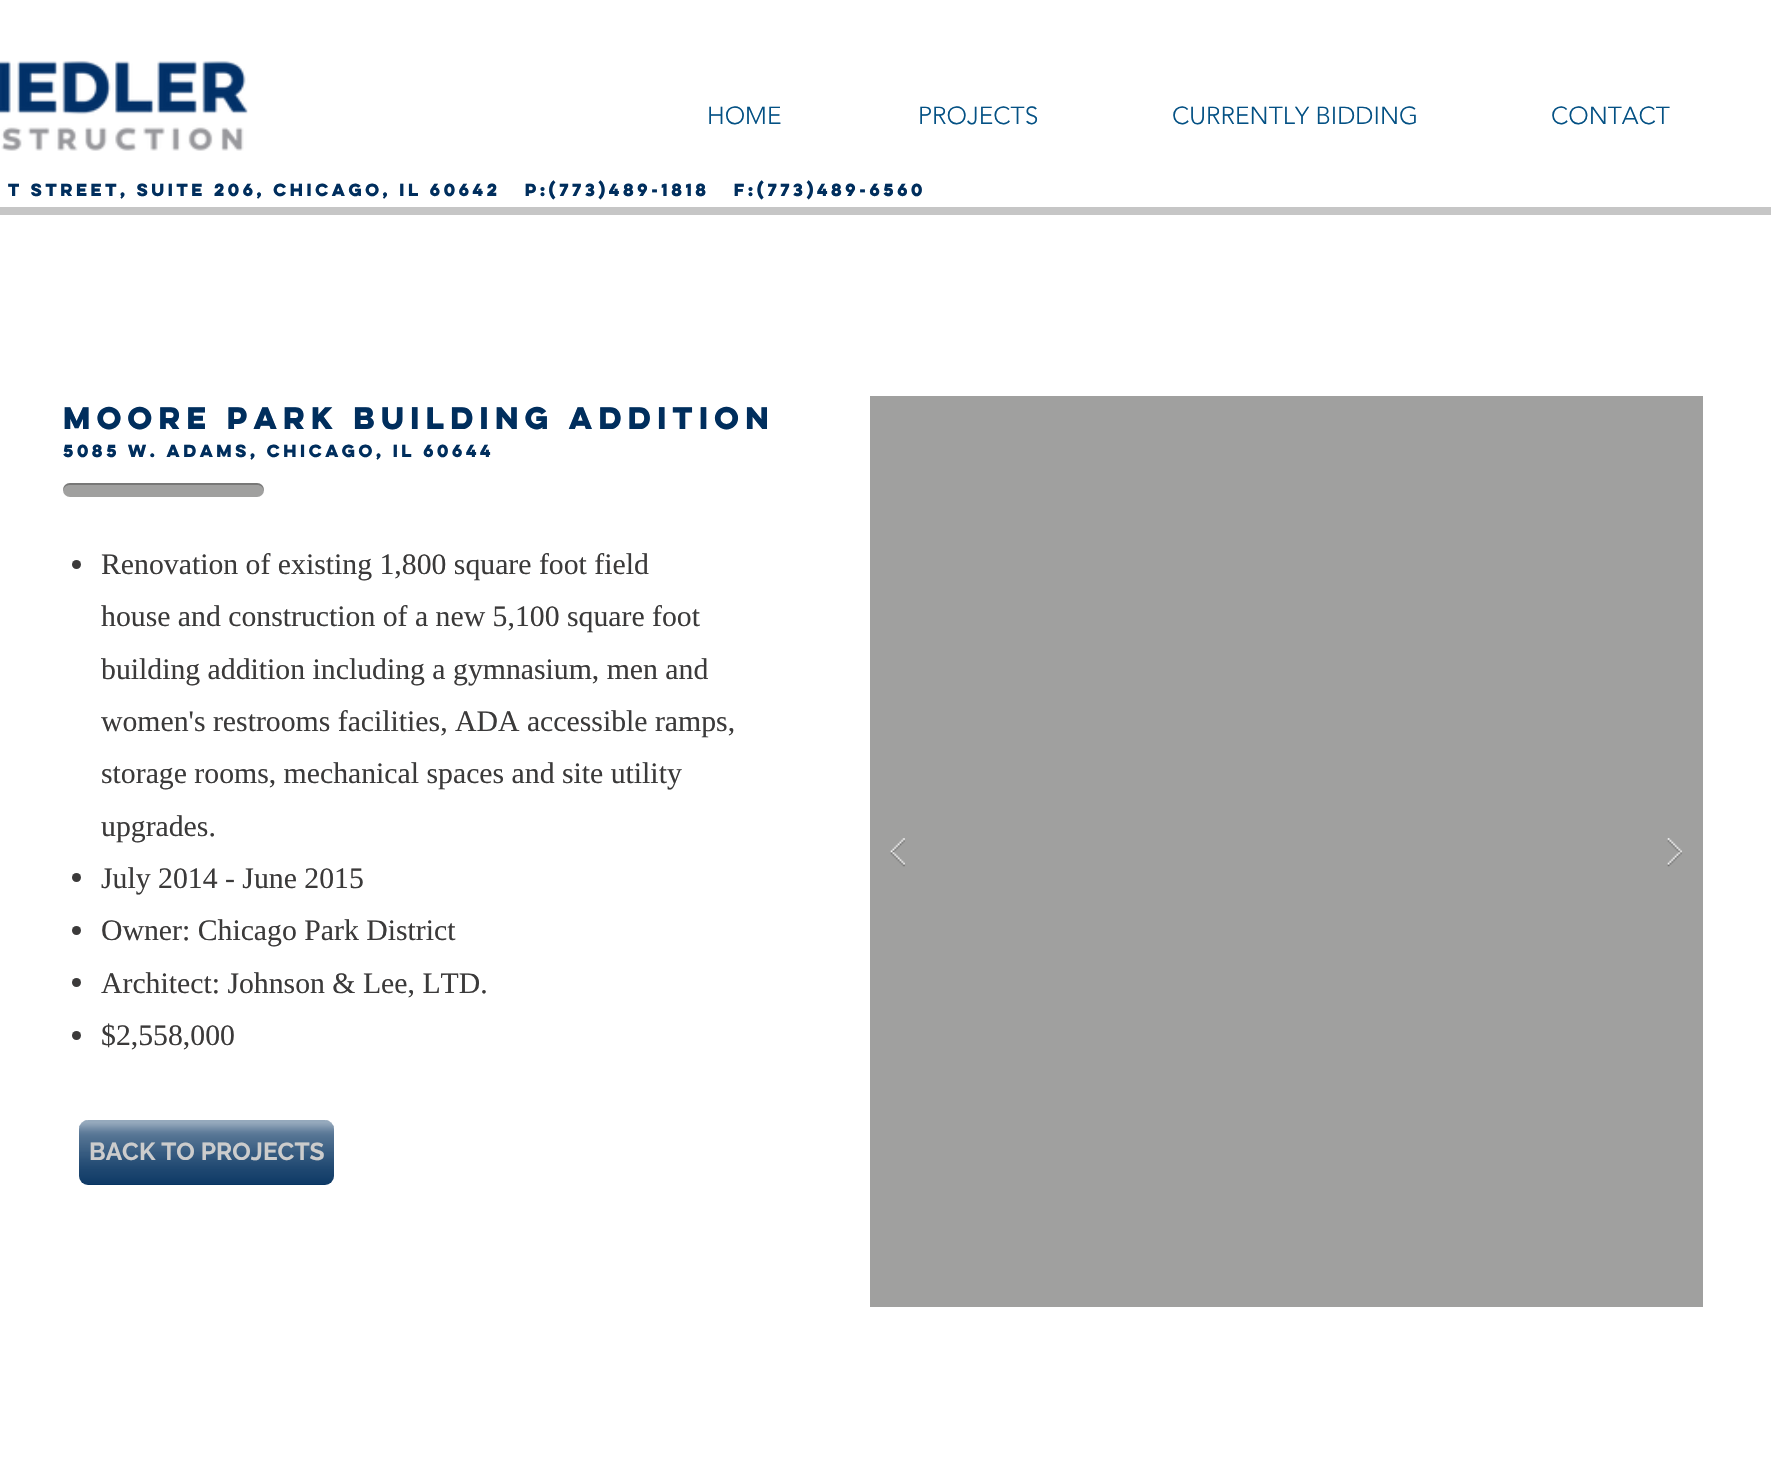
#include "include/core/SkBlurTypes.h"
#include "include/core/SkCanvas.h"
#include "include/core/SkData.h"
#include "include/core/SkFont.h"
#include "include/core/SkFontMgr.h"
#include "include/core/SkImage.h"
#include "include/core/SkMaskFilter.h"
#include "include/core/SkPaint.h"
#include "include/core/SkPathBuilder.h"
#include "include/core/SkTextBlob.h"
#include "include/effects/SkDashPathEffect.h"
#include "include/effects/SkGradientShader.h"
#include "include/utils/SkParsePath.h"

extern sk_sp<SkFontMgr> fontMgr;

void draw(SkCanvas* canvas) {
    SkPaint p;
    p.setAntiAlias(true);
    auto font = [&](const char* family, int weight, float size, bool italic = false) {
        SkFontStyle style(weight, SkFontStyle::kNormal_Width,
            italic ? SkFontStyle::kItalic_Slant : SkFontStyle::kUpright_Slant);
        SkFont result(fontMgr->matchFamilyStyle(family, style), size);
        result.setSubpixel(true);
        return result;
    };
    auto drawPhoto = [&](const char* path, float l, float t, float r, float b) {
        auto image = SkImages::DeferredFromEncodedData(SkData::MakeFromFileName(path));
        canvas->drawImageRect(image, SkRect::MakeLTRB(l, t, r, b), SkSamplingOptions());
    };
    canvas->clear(0xFFFFFFFF);
    auto font1 = font("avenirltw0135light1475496", 300, 24.5f);
    p.setColor(0xFF045184);
    {
        const struct { const char* s; float x, y; } items[] = {
            {"HOME", 707, 124},
            {"PROJECTS", 918, 124},
            {"CURRENTLY BIDDING", 1172, 124},
            {"CONTACT", 1551, 124},
        };
        for (auto [s, x, y] : items) {
            canvas->drawString(s, x, y, font1, p);
        }
    }
    drawPhoto("media/1.png", 0, 60, 248, 151);
    auto font2 = font("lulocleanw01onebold", 700, 15.75f);
    p.setColor(0xFF002E5D);
    canvas->drawString("t street, Suite 206, Chicago, IL 60642   P:(773)489-1818   F:(773)489-6560", 8, 196, font2, p);
    p.setColor(0xFFC6C6C6);
    canvas->drawRect(SkRect::MakeLTRB(0, 207, 1771, 215), p);
    auto font3 = font("lulocleanw01onebold", 700, 28);
    p.setColor(0xFF002E5D);
    canvas->drawString("moore park building addition", 63, 429, font3, p);
    canvas->drawString("5085 w. adams, chicago, il 60644", 63, 457, font2, p);
    p.setColor(0xFFA0A09F);
    canvas->drawRect(SkRect::MakeLTRB(870, 396, 1703, 1307), p);
    drawPhoto("media/2.png", 890, 838, 905, 867);
    drawPhoto("media/3.png", 1667, 838, 1682, 867);
    canvas->drawRoundRect(SkRect::MakeLTRB(63, 483, 264, 497), 7, 7, p);
    p.setColor(0x40000000);
    canvas->drawPath(SkPathBuilder().moveTo(70, 485).lineTo(257, 485).cubicTo(261, 485, 263, 487, 264, 491).lineTo(264, 490).cubicTo(264, 486, 261, 483, 257, 483).lineTo(70, 483).cubicTo(66, 483, 63, 486, 63, 490).lineTo(63, 491).cubicTo(64, 487, 66, 485, 70, 485).close().detach(), p);
    p.setColor(0xFF3B3A3A);
    canvas->drawCircle(76.5f, 564.5f, 4.5f, p);
    auto font4 = font("Liberation Serif", 400, 29.75f);
    {
        const struct { const char* s; float x, y; } items[] = {
            {"Renovation of existing 1,800 square foot field", 101, 574},
            {"house and construction of a new 5,100 square foot", 101, 626},
            {"building addition including a gymnasium, men and", 101, 679},
            {"women's restrooms facilities, ADA accessible ramps,", 101, 731},
            {"storage rooms, mechanical spaces and site utility", 101, 783},
            {"upgrades.", 101, 836},
        };
        for (auto [s, x, y] : items) {
            canvas->drawString(s, x, y, font4, p);
        }
    }
    canvas->drawCircle(76.5f, 877.5f, 4.5f, p);
    canvas->drawString("July 2014 - June 2015", 101, 888, font4, p);
    canvas->drawCircle(76.5f, 930.5f, 4.5f, p);
    canvas->drawString("Owner: Chicago Park District", 101, 940, font4, p);
    canvas->drawCircle(76.5f, 982.5f, 4.5f, p);
    canvas->drawString("Architect: Johnson & Lee, LTD.", 101, 993, font4, p);
    canvas->drawCircle(76.5f, 1035.5f, 4.5f, p);
    canvas->drawString("$2,558,000", 101, 1045, font4, p);
    p.setColor(0xFF002E5D);
    canvas->drawRoundRect(SkRect::MakeLTRB(79, 1120, 334, 1185), 9, 9, p);
    drawPhoto("media/4.png", 79, 1120, 334, 1185);
    auto font5 = font("Raleway", 700, 24.5f);
    p.setColor(0xFFCCCCCC);
    canvas->drawString("BACK TO PROJECTS", 89, 1160, font5, p);
}
